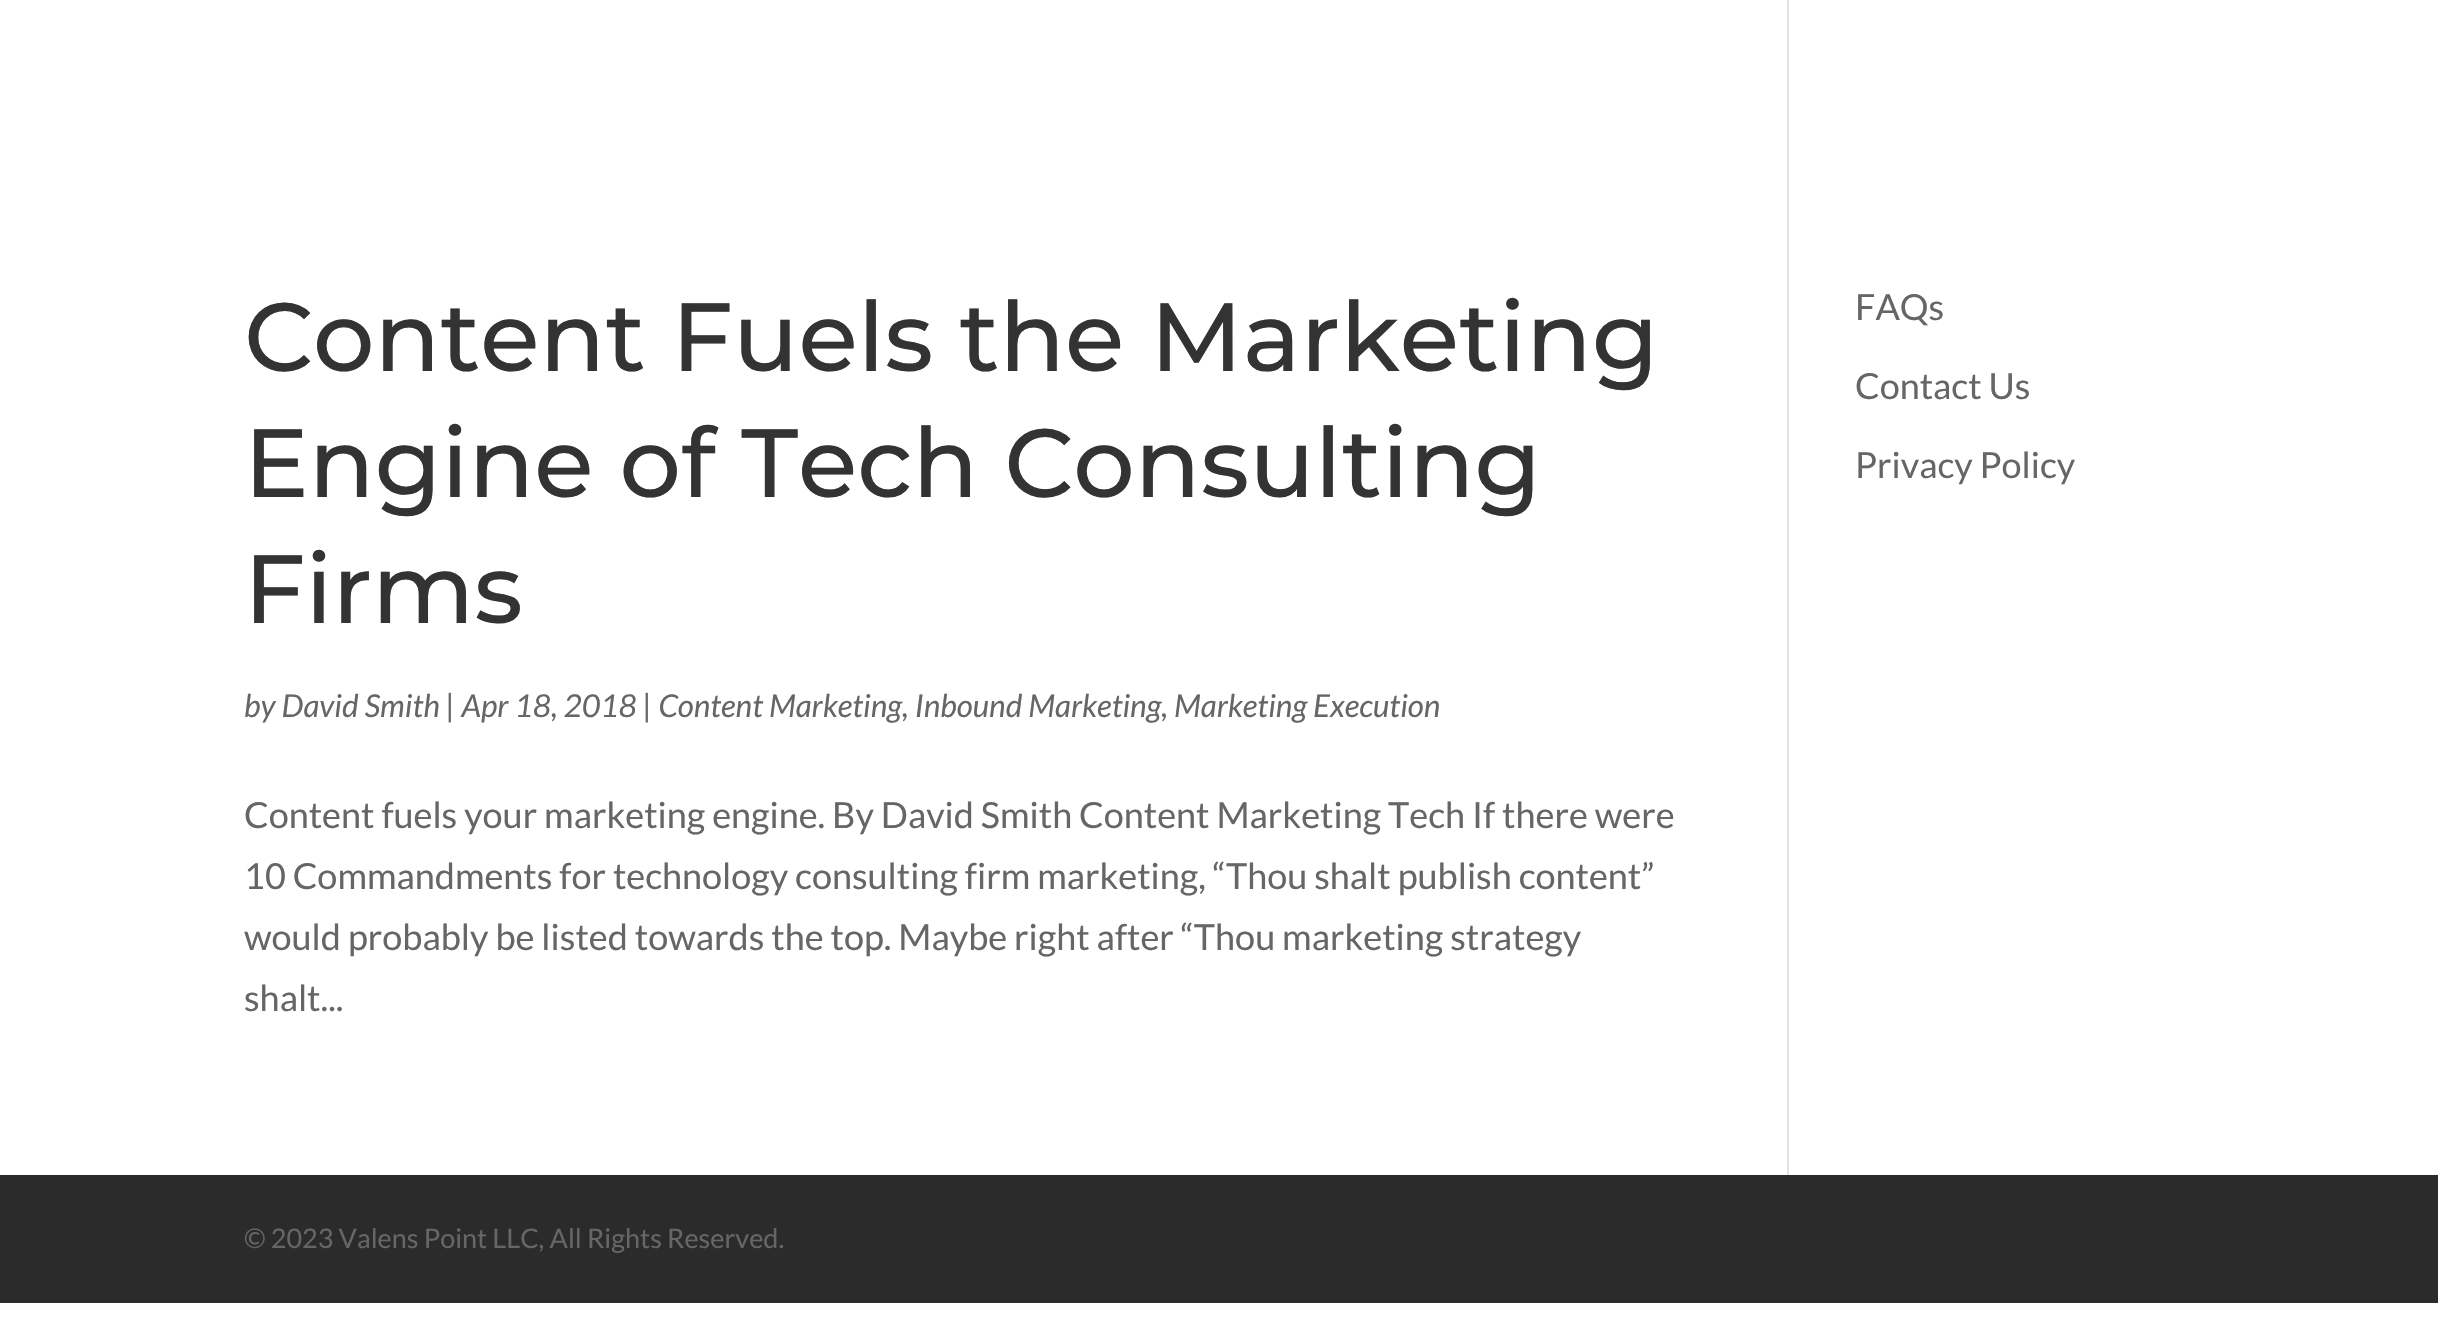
#include "include/core/SkBlurTypes.h"
#include "include/core/SkCanvas.h"
#include "include/core/SkData.h"
#include "include/core/SkFont.h"
#include "include/core/SkFontMgr.h"
#include "include/core/SkImage.h"
#include "include/core/SkMaskFilter.h"
#include "include/core/SkPaint.h"
#include "include/core/SkPathBuilder.h"
#include "include/core/SkTextBlob.h"
#include "include/effects/SkDashPathEffect.h"
#include "include/effects/SkGradientShader.h"
#include "include/utils/SkParsePath.h"

extern sk_sp<SkFontMgr> fontMgr;

void draw(SkCanvas* canvas) {
    SkPaint p;
    p.setAntiAlias(true);
    auto font = [&](const char* family, int weight, float size, bool italic = false) {
        SkFontStyle style(weight, SkFontStyle::kNormal_Width,
            italic ? SkFontStyle::kItalic_Slant : SkFontStyle::kUpright_Slant);
        SkFont result(fontMgr->matchFamilyStyle(family, style), size);
        result.setSubpixel(true);
        return result;
    };
    canvas->clear(0xFFFFFFFF);
    p.setColor(0xFFE2E2E2);
    canvas->drawRect(SkRect::MakeLTRB(1787, 0, 1789, 1175), p);
    auto font1 = font("Montserrat", 100, 96.75f);
    p.setColor(0xFF333333);
    {
        const struct { const char* s; float x, y; } items[] = {
            {"Content Fuels the Marketing", 244, 371},
            {"Engine of Tech Consulting", 244, 497},
            {"Firms", 244, 623},
        };
        for (auto [s, x, y] : items) {
            canvas->drawString(s, x, y, font1, p);
        }
    }
    auto font2 = font("Lato", 400, 31.5f, true);
    p.setColor(0xFF666666);
    canvas->drawString("by David Smith | Apr 18, 2018 | Content Marketing, Inbound Marketing, Marketing Execution", 244, 717, font2, p);
    auto font3 = font("Lato", 400, 36);
    {
        const struct { const char* s; float x, y; } items[] = {
            {"Content fuels your marketing engine. By David Smith Content Marketing Tech If there were", 244, 828},
            {"10 Commandments for technology consulting firm marketing, “Thou shalt publish content”", 244, 889},
            {"would probably be listed towards the top. Maybe right after “Thou marketing strategy", 244, 950},
            {"shalt...", 244, 1011},
            {"FAQs", 1855, 320},
            {"Contact Us", 1855, 399},
            {"Privacy Policy", 1855, 478},
        };
        for (auto [s, x, y] : items) {
            canvas->drawString(s, x, y, font3, p);
        }
    }
    p.setColor(0xFF2C2B2B);
    canvas->drawRect(SkRect::MakeLTRB(0, 1175, 2438, 1303), p);
    auto font4 = font("Lato", 400, 27);
    p.setColor(0xFF666666);
    canvas->drawString("© 2023 Valens Point LLC, All Rights Reserved.", 244, 1248, font4, p);
}
